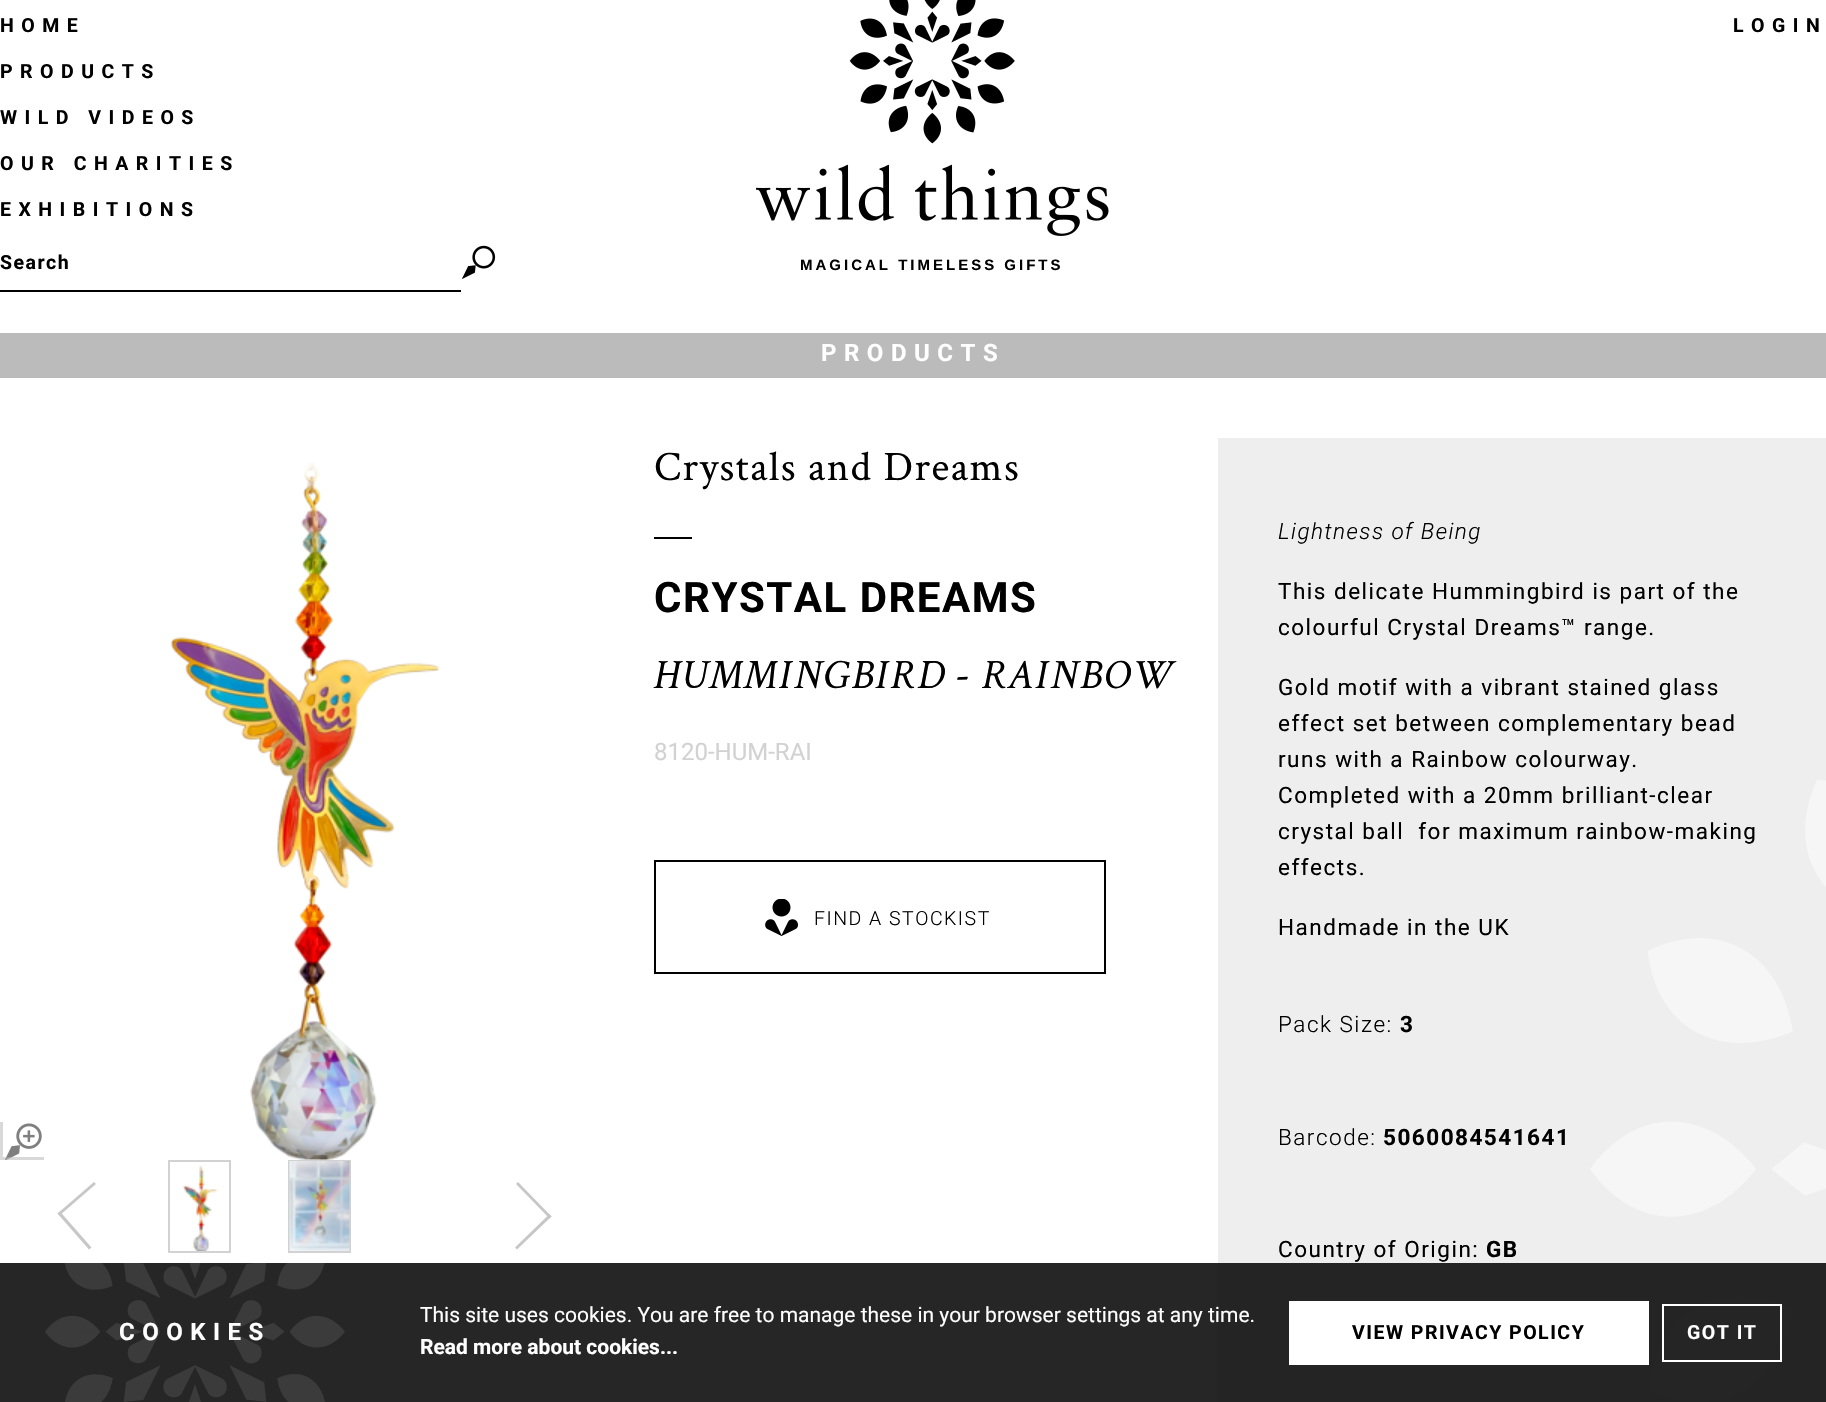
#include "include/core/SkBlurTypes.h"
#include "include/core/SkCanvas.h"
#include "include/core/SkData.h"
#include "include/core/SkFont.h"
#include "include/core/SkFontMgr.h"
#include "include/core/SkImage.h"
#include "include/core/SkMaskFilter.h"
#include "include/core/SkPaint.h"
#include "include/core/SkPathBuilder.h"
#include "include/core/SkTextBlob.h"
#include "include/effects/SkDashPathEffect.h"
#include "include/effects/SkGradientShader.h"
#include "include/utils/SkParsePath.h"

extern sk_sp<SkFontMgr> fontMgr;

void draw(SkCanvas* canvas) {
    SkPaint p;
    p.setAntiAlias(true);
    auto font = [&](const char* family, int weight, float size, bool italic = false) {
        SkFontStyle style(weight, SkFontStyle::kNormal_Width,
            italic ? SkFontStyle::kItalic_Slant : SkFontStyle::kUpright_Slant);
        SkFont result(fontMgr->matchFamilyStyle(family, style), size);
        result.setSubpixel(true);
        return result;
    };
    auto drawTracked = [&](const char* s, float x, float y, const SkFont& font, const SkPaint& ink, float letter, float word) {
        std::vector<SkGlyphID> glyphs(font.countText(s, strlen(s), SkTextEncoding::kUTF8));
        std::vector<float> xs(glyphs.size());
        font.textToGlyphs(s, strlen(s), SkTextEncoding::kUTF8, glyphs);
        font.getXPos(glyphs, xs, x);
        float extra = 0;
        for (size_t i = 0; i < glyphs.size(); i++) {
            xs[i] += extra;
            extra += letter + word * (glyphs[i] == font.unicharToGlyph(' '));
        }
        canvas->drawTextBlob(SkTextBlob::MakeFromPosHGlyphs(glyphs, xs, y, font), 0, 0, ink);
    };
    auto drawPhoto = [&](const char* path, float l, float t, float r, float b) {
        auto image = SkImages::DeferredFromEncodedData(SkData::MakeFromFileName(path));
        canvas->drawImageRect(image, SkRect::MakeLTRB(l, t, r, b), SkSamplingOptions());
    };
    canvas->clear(0xFFFFFFFF);
    auto font1 = font("Roboto", 700, 19.5f);
    p.setColor(0xFF000000);
    {
        const struct { const char* s; float x, y; } items[] = {
            {"HOME", 0, 32},
            {"PRODUCTS", 0, 78},
            {"WILD VIDEOS", 0, 124},
            {"OUR CHARITIES", 0, 170},
            {"EXHIBITIONS", 0, 216},
        };
        for (auto [s, x, y] : items) {
            drawTracked(s, x, y, font1, p, 7.5f, 0);
        }
    }
    canvas->drawRect(SkRect::MakeLTRB(0, 290, 461, 292), p);
    drawTracked("Search", 0, 269, font1, p, 1.5f, 0);
    drawPhoto("media/1.png", 462, 245, 496, 279);
    drawTracked("LOGIN", 1733, 32, font1, p, 7.5f, 0);
    drawPhoto("media/2.png", 756, 0, 1109, 236);
    auto font2 = font("Liberation Sans", 700, 15);
    drawTracked("MAGICAL TIMELESS GIFTS", 800, 270, font2, p, 3, 0);
    drawPhoto("media/3.png", 5, 1123, 42, 1160);
    p.setColor(0x80B2B2B2);
    canvas->drawRect(SkRect::MakeLTRB(0, 1157, 44, 1160), p);
    p.setColor(0xFFD9D9D9);
    canvas->drawRect(SkRect::MakeLTRB(0, 1122, 3, 1160), p);
    drawPhoto("media/4.png", 170, 462, 440, 1160);
    p.setColor(0xFFC7C7C7);
    canvas->drawPath(SkPathBuilder().moveTo(91.5f, 1247.5f).lineTo(89, 1249.5f).lineTo(57.5f, 1213.5f).lineTo(60, 1211.5f).close().detach(), p);
    canvas->drawPath(SkPathBuilder().moveTo(96, 1184).lineTo(59.5f, 1215.5f).lineTo(57.5f, 1213.5f).lineTo(94, 1182).close().detach(), p);
    p.setStyle(SkPaint::kStroke_Style);
    p.setStrokeWidth(2);
    p.setColor(0xFFD2D2D2);
    canvas->drawRect(SkRect::MakeLTRB(169, 1161, 230, 1252), p);
    drawPhoto("media/5.png", 182, 1165, 218, 1251);
    canvas->drawRect(SkRect::MakeLTRB(289, 1161, 350, 1252), p);
    drawPhoto("media/6.png", 289, 1161, 350, 1251);
    p.setStyle(SkPaint::kFill_Style);
    p.setColor(0xFFC7C7C7);
    canvas->drawPath(SkPathBuilder().moveTo(516, 1184).lineTo(518, 1182).lineTo(551.5f, 1216.5f).lineTo(549.5f, 1218.5f).close().detach(), p);
    canvas->drawPath(SkPathBuilder().moveTo(515, 1247.5f).lineTo(549.5f, 1214).lineTo(551.5f, 1216.5f).lineTo(517, 1249.5f).close().detach(), p);
    p.setColor(0xFFBBBBBB);
    canvas->drawRect(SkRect::MakeLTRB(0, 333, 1826, 378), p);
    auto font3 = font("Roboto", 700, 24);
    p.setColor(0xFFFFFFFF);
    drawTracked("PRODUCTS", 821, 361, font3, p, 7.5f, 0);
    auto font4 = font("Crimson Text", 400, 42);
    p.setColor(0xFF000000);
    drawTracked("Crystals and Dreams", 654, 480, font4, p, 1.5f, 0);
    canvas->drawRect(SkRect::MakeLTRB(654, 537, 692, 539), p);
    auto font5 = font("Roboto", 700, 42);
    drawTracked("CRYSTAL DREAMS", 654, 612, font5, p, 1.5f, 0);
    auto font6 = font("Crimson Text", 400, 42, true);
    drawTracked("HUMMINGBIRD - RAINBOW", 654, 688, font6, p, 1.5f, 0);
    auto font7 = font("Roboto", 400, 24);
    p.setColor(0xFFD2D2D2);
    canvas->drawString("8120-HUM-RAI", 654, 760, font7, p);
    p.setStyle(SkPaint::kStroke_Style);
    p.setColor(0xFF000000);
    canvas->drawRect(SkRect::MakeLTRB(655, 861, 1105, 973), p);
    drawPhoto("media/7.png", 765, 899, 798, 936);
    auto font8 = font("Roboto", 300, 19.5f);
    p.setStyle(SkPaint::kFill_Style);
    drawTracked("FIND A STOCKIST", 814, 925, font8, p, 1.5f, 0);
    p.setColor(0xFFEEEEEE);
    canvas->drawRect(SkRect::MakeLTRB(1218, 438, 1826, 1402), p);
    drawPhoto("media/8.png", 1590, 779, 1826, 1402);
    auto font9 = font("Roboto", 300, 22.5f, true);
    p.setColor(0xFF000000);
    drawTracked("Lightness of Being", 1278, 539, font9, p, 1.5f, 0);
    auto font10 = font("Roboto", 400, 22.5f);
    {
        const struct { const char* s; float x, y; } items[] = {
            {"This delicate Hummingbird is part of the", 1278, 599},
            {"colourful Crystal Dreams™ range.", 1278, 635},
            {"Gold motif with a vibrant stained glass", 1278, 695},
            {"effect set between complementary bead", 1278, 731},
            {"runs with a Rainbow colourway.", 1278, 767},
            {"Completed with a 20mm brilliant-clear", 1278, 803},
            {"crystal ball  for maximum rainbow-making", 1278, 839},
            {"effects.", 1278, 875},
            {"Handmade in the UK", 1278, 935},
        };
        for (auto [s, x, y] : items) {
            drawTracked(s, x, y, font10, p, 1.5f, 0);
        }
    }
    auto font11 = font("Roboto", 300, 22.5f);
    drawTracked("Pack Size:", 1278, 1032, font11, p, 1.5f, 0);
    auto font12 = font("Roboto", 700, 22.5f);
    drawTracked("3", 1400, 1032, font12, p, 1.5f, 0);
    drawTracked("Barcode:", 1278, 1145, font11, p, 1.5f, 0);
    drawTracked("5060084541641", 1383, 1145, font12, p, 1.5f, 0);
    drawTracked("Country of Origin:", 1278, 1257, font10, p, 1.5f, 0);
    drawTracked("GB", 1486, 1257, font12, p, 1.5f, 0);
    p.setColor(0xD9000000);
    canvas->drawRect(SkRect::MakeLTRB(0, 1263, 1826, 1402), p);
    p.setColor(0xFFFFFFFF);
    drawTracked("COOKIES", 119, 1340, font3, p, 7.5f, 0);
    drawPhoto("media/9.png", 45, 1263, 345, 1402);
    auto font13 = font("Roboto", 400, 21);
    canvas->drawString("This site uses cookies. You are free to manage these in your browser settings at any time.", 420, 1322, font13, p);
    auto font14 = font("Roboto", 700, 21);
    canvas->drawString("Read more about cookies...", 420, 1354, font14, p);
    canvas->drawRect(SkRect::MakeLTRB(1289, 1301, 1649, 1365), p);
    p.setColor(0xFF000000);
    drawTracked("VIEW PRIVACY POLICY", 1352, 1339, font1, p, 1.5f, 0);
    p.setStyle(SkPaint::kStroke_Style);
    p.setColor(0xFFFFFFFF);
    canvas->drawRect(SkRect::MakeLTRB(1663, 1305, 1781, 1361), p);
    p.setStyle(SkPaint::kFill_Style);
    drawTracked("GOT IT", 1687, 1339, font1, p, 1.5f, 0);
}
